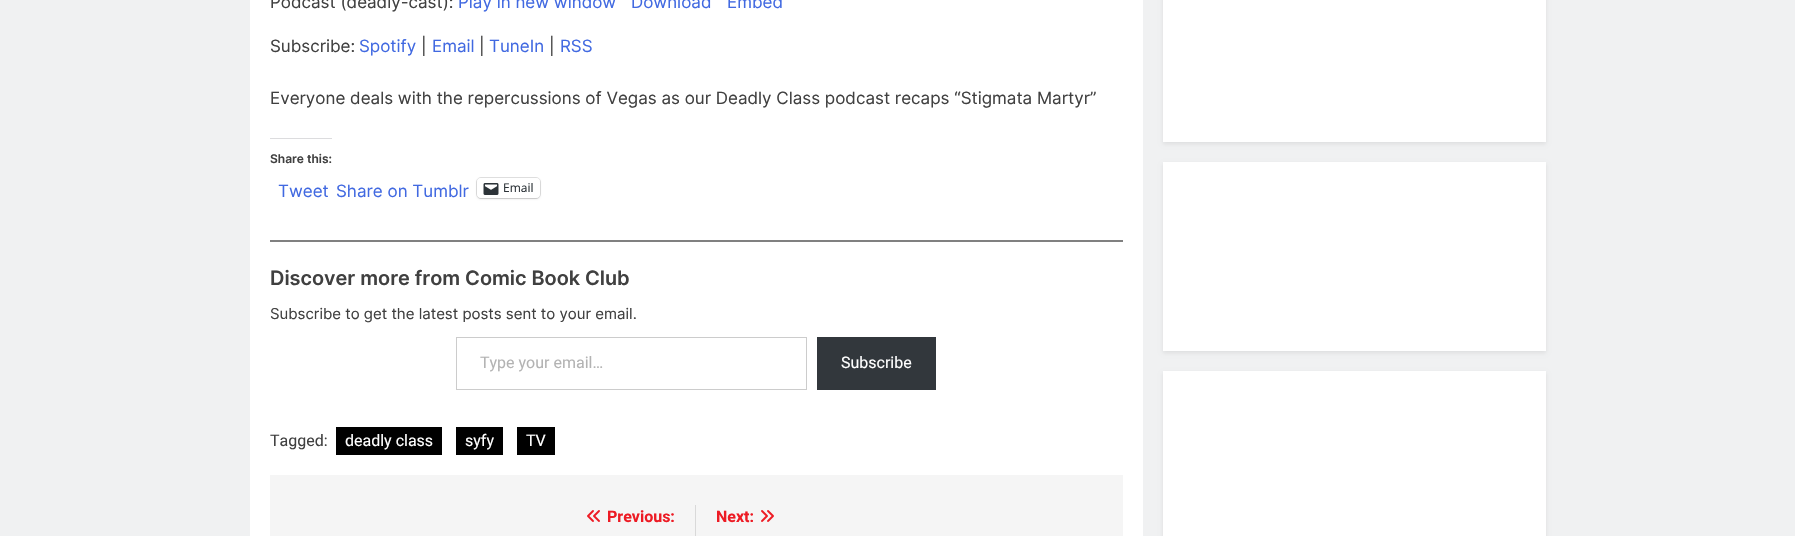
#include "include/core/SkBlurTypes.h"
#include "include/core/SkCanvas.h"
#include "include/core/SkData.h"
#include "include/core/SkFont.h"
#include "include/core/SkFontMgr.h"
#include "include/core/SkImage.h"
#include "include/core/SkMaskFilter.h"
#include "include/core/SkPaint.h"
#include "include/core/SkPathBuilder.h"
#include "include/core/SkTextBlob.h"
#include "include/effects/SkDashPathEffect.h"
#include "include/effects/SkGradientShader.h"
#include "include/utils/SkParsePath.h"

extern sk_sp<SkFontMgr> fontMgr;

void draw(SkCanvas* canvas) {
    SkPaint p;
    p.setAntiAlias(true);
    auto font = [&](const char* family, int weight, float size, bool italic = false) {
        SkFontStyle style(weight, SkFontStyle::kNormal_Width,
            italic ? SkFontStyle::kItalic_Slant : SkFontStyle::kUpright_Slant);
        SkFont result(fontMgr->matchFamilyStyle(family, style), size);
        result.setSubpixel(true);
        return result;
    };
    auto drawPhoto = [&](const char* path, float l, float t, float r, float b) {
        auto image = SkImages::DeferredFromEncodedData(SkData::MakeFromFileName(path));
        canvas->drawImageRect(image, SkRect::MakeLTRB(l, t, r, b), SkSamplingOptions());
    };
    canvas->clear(0xFFF0F1F2);
    p.setColor(0xFFFFFFFF);
    canvas->drawRect(SkRect::MakeLTRB(250, 0, 1143, 536), p);
    auto font1 = font("Inter", 400, 17);
    p.setColor(0xFF404040);
    canvas->drawString("Podcast (deadly-cast):", 270, 8, font1, p);
    p.setColor(0xFF4169E1);
    {
        const struct { const char* s; float x, y; } items[] = {
            {"Play in new window", 458, 8},
            {"Download", 631, 8},
            {"Embed", 727, 8},
        };
        for (auto [s, x, y] : items) {
            canvas->drawString(s, x, y, font1, p);
        }
    }
    p.setColor(0xFF404040);
    canvas->drawString("Subscribe:", 270, 52, font1, p);
    p.setColor(0xFF4169E1);
    canvas->drawString("Spotify", 359, 52, font1, p);
    p.setColor(0xFF404040);
    canvas->drawString("|", 421, 52, font1, p);
    p.setColor(0xFF4169E1);
    canvas->drawString("Email", 432, 52, font1, p);
    p.setColor(0xFF404040);
    canvas->drawString("|", 479, 52, font1, p);
    p.setColor(0xFF4169E1);
    canvas->drawString("TuneIn", 489, 52, font1, p);
    p.setColor(0xFF404040);
    canvas->drawString("|", 549, 52, font1, p);
    p.setColor(0xFF4169E1);
    canvas->drawString("RSS", 560, 52, font1, p);
    p.setColor(0xFF404040);
    canvas->drawString("Everyone deals with the repercussions of Vegas as our Deadly Class podcast recaps “Stigmata Martyr”", 270, 104, font1, p);
    p.setColor(0xFFDCDCDE);
    canvas->drawRect(SkRect::MakeLTRB(270, 138, 332, 139), p);
    auto font2 = font("Inter", 600, 12);
    p.setColor(0xFF404040);
    canvas->drawString("Share this:", 270, 163, font2, p);
    p.setColor(0xFF4169E1);
    canvas->drawString("Tweet", 278, 197, font1, p);
    canvas->drawString("Share on Tumblr", 336, 197, font1, p);
    p.setStyle(SkPaint::kStroke_Style);
    p.setStrokeWidth(1);
    p.setColor(0xFFE0E0E0);
    canvas->drawRoundRect(SkRect::MakeLTRB(476.5f, 177.5f, 540.5f, 198.5f), 4.5f, 4.5f, p);
    p.setStyle(SkPaint::kFill_Style);
    p.setColor(0x1F000000);
    p.setMaskFilter(SkMaskFilter::MakeBlur(kNormal_SkBlurStyle, 1));
    canvas->drawRoundRect(SkRect::MakeLTRB(477, 179, 540, 199), 4, 4, p);
    p.setMaskFilter(nullptr);
    p.setColor(0xFFFFFFFF);
    canvas->drawRoundRect(SkRect::MakeLTRB(477, 178, 540, 198), 4, 4, p);
    drawPhoto("media/1.png", 483, 183, 499, 195);
    auto font3 = font("Open Sans", 400, 12);
    p.setColor(0xFF2C3338);
    canvas->drawString("Email", 503, 192, font3, p);
    p.setColor(0xFF808080);
    canvas->drawRect(SkRect::MakeLTRB(270, 240, 1123, 242), p);
    auto font4 = font("Inter", 600, 19.9f);
    p.setColor(0xFF404040);
    canvas->drawString("Discover more from Comic Book Club", 270, 285, font4, p);
    auto font5 = font("Inter", 400, 15);
    canvas->drawString("Subscribe to get the latest posts sent to your email.", 270, 319, font5, p);
    p.setStyle(SkPaint::kStroke_Style);
    p.setColor(0xFFCCCCCC);
    canvas->drawRect(SkRect::MakeLTRB(456.5f, 337.5f, 806.5f, 389.5f), p);
    auto font6 = font("Roboto", 400, 16);
    p.setStyle(SkPaint::kFill_Style);
    p.setColor(0xFFB3B3B3);
    canvas->drawString("Type your email…", 480, 368, font6, p);
    p.setColor(0xFF32373C);
    canvas->drawRect(SkRect::MakeLTRB(817, 337, 936, 390), p);
    p.setColor(0xFFFFFFFF);
    canvas->drawString("Subscribe", 841, 368, font6, p);
    p.setColor(0xFF404040);
    canvas->drawString("Tagged:", 270, 446, font6, p);
    p.setColor(0xFF000000);
    canvas->drawRect(SkRect::MakeLTRB(336, 427, 442, 455), p);
    p.setColor(0xFFFFFFFF);
    canvas->drawString("deadly class", 345, 446, font6, p);
    p.setColor(0xFF000000);
    canvas->drawRect(SkRect::MakeLTRB(456, 427, 503, 455), p);
    p.setColor(0xFFFFFFFF);
    canvas->drawString("syfy", 465, 446, font6, p);
    p.setColor(0xFF000000);
    canvas->drawRect(SkRect::MakeLTRB(517, 427, 555, 455), p);
    p.setColor(0xFFFFFFFF);
    canvas->drawString("TV", 526, 446, font6, p);
    p.setColor(0xFFF5F5F5);
    canvas->drawRect(SkRect::MakeLTRB(270, 475, 1123, 536), p);
    p.setColor(0xFFD9D9D9);
    canvas->drawRect(SkRect::MakeLTRB(695, 505, 696, 536), p);
    drawPhoto("media/2.png", 587, 510, 600, 522);
    auto font7 = font("Roboto", 700, 16);
    p.setColor(0xFFED1B24);
    canvas->drawString("Previous:", 607, 522, font7, p);
    canvas->drawString("Next:", 716, 522, font7, p);
    drawPhoto("media/3.png", 761, 510, 774, 522);
    p.setColor(0x14000000);
    p.setMaskFilter(SkMaskFilter::MakeBlur(kNormal_SkBlurStyle, 2));
    canvas->drawRect(SkRect::MakeLTRB(1163, -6, 1546, 144), p);
    p.setMaskFilter(nullptr);
    p.setColor(0xFFFFFFFF);
    canvas->drawRect(SkRect::MakeLTRB(1163, 0, 1546, 142), p);
    p.setColor(0x14000000);
    p.setMaskFilter(SkMaskFilter::MakeBlur(kNormal_SkBlurStyle, 2));
    canvas->drawRect(SkRect::MakeLTRB(1163, 164, 1546, 353), p);
    p.setMaskFilter(nullptr);
    p.setColor(0xFFFFFFFF);
    canvas->drawRect(SkRect::MakeLTRB(1163, 162, 1546, 351), p);
    p.setColor(0x14000000);
    p.setMaskFilter(SkMaskFilter::MakeBlur(kNormal_SkBlurStyle, 2));
    canvas->drawRect(SkRect::MakeLTRB(1163, 373, 1546, 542), p);
    p.setMaskFilter(nullptr);
    p.setColor(0xFFFFFFFF);
    canvas->drawRect(SkRect::MakeLTRB(1163, 371, 1546, 536), p);
}
